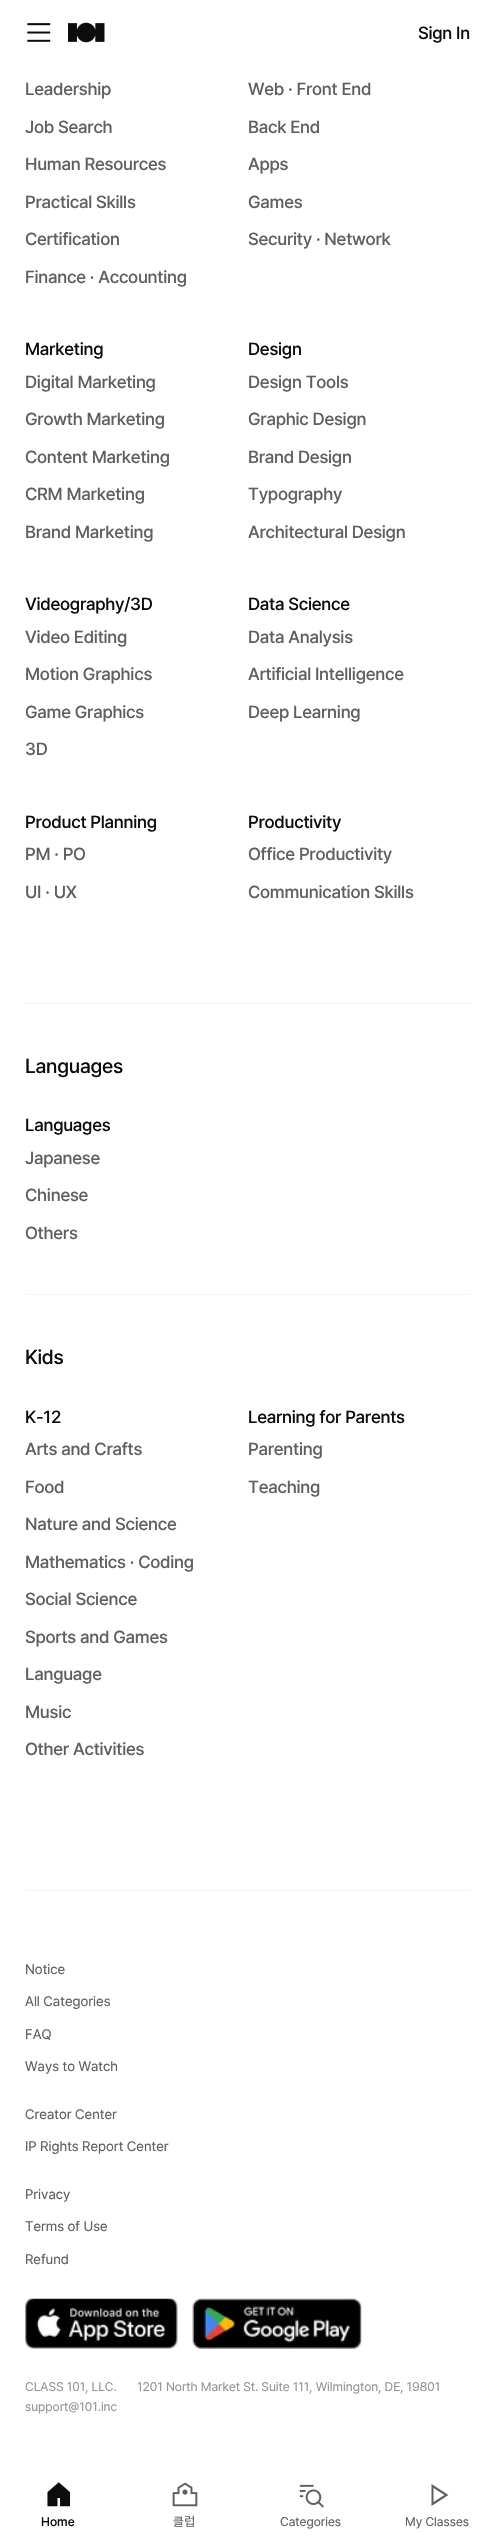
#include "include/core/SkBlurTypes.h"
#include "include/core/SkCanvas.h"
#include "include/core/SkData.h"
#include "include/core/SkFont.h"
#include "include/core/SkFontMgr.h"
#include "include/core/SkImage.h"
#include "include/core/SkMaskFilter.h"
#include "include/core/SkPaint.h"
#include "include/core/SkPathBuilder.h"
#include "include/core/SkTextBlob.h"
#include "include/effects/SkDashPathEffect.h"
#include "include/effects/SkGradientShader.h"
#include "include/utils/SkParsePath.h"

extern sk_sp<SkFontMgr> fontMgr;

void draw(SkCanvas* canvas) {
    SkPaint p;
    p.setAntiAlias(true);
    auto font = [&](const char* family, int weight, float size, bool italic = false) {
        SkFontStyle style(weight, SkFontStyle::kNormal_Width,
            italic ? SkFontStyle::kItalic_Slant : SkFontStyle::kUpright_Slant);
        SkFont result(fontMgr->matchFamilyStyle(family, style), size);
        result.setSubpixel(true);
        return result;
    };
    auto drawTracked = [&](const char* s, float x, float y, const SkFont& font, const SkPaint& ink, float letter, float word) {
        std::vector<SkGlyphID> glyphs(font.countText(s, strlen(s), SkTextEncoding::kUTF8));
        std::vector<float> xs(glyphs.size());
        font.textToGlyphs(s, strlen(s), SkTextEncoding::kUTF8, glyphs);
        font.getXPos(glyphs, xs, x);
        float extra = 0;
        for (size_t i = 0; i < glyphs.size(); i++) {
            xs[i] += extra;
            extra += letter + word * (glyphs[i] == font.unicharToGlyph(' '));
        }
        canvas->drawTextBlob(SkTextBlob::MakeFromPosHGlyphs(glyphs, xs, y, font), 0, 0, ink);
    };
    auto drawPhoto = [&](const char* path, float l, float t, float r, float b) {
        auto image = SkImages::DeferredFromEncodedData(SkData::MakeFromFileName(path));
        canvas->drawImageRect(image, SkRect::MakeLTRB(l, t, r, b), SkSamplingOptions());
    };
    canvas->clear(0xFFFFFFFF);
    drawPhoto("media/1.png", 27, 23, 51, 42);
    drawPhoto("media/2.png", 68, 22, 105, 43);
    auto font1 = font("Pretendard", 500, 17.5f);
    p.setColor(0xFF0C0C0C);
    drawTracked("Sign In", 418, 39, font1, p, -0.25f, 0);
    p.setColor(0xFF5F5F5F);
    {
        const struct { const char* s; float x, y; } items[] = {
            {"Leadership", 25, 95},
            {"Job Search", 25, 133},
            {"Human Resources", 25, 170},
            {"Practical Skills", 25, 208},
            {"Certification", 25, 245},
            {"Finance · Accounting", 25, 283},
            {"Web · Front End", 248, 95},
            {"Back End", 248, 133},
            {"Apps", 248, 170},
            {"Games", 248, 208},
            {"Security · Network", 248, 245},
        };
        for (auto [s, x, y] : items) {
            drawTracked(s, x, y, font1, p, -0.25f, 0);
        }
    }
    p.setColor(0xFF0C0C0C);
    drawTracked("Marketing", 25, 355, font1, p, -0.25f, 0);
    p.setColor(0xFF5F5F5F);
    {
        const struct { const char* s; float x, y; } items[] = {
            {"Digital Marketing", 25, 388},
            {"Growth Marketing", 25, 425},
            {"Content Marketing", 25, 463},
            {"CRM Marketing", 25, 500},
            {"Brand Marketing", 25, 538},
        };
        for (auto [s, x, y] : items) {
            drawTracked(s, x, y, font1, p, -0.25f, 0);
        }
    }
    p.setColor(0xFF0C0C0C);
    drawTracked("Design", 248, 355, font1, p, -0.25f, 0);
    p.setColor(0xFF5F5F5F);
    {
        const struct { const char* s; float x, y; } items[] = {
            {"Design Tools", 248, 388},
            {"Graphic Design", 248, 425},
            {"Brand Design", 248, 463},
            {"Typography", 248, 500},
            {"Architectural Design", 248, 538},
        };
        for (auto [s, x, y] : items) {
            drawTracked(s, x, y, font1, p, -0.25f, 0);
        }
    }
    p.setColor(0xFF0C0C0C);
    drawTracked("Videography/3D", 25, 610, font1, p, -0.25f, 0);
    p.setColor(0xFF5F5F5F);
    {
        const struct { const char* s; float x, y; } items[] = {
            {"Video Editing", 25, 643},
            {"Motion Graphics", 25, 680},
            {"Game Graphics", 25, 718},
            {"3D", 25, 755},
        };
        for (auto [s, x, y] : items) {
            drawTracked(s, x, y, font1, p, -0.25f, 0);
        }
    }
    p.setColor(0xFF0C0C0C);
    drawTracked("Data Science", 248, 610, font1, p, -0.25f, 0);
    p.setColor(0xFF5F5F5F);
    {
        const struct { const char* s; float x, y; } items[] = {
            {"Data Analysis", 248, 643},
            {"Artificial Intelligence", 248, 680},
            {"Deep Learning", 248, 718},
        };
        for (auto [s, x, y] : items) {
            drawTracked(s, x, y, font1, p, -0.25f, 0);
        }
    }
    p.setColor(0xFF0C0C0C);
    drawTracked("Product Planning", 25, 828, font1, p, -0.25f, 0);
    p.setColor(0xFF5F5F5F);
    drawTracked("PM · PO", 25, 860, font1, p, -0.25f, 0);
    drawTracked("UI · UX", 25, 898, font1, p, -0.25f, 0);
    p.setColor(0xFF0C0C0C);
    drawTracked("Productivity", 248, 828, font1, p, -0.25f, 0);
    p.setColor(0xFF5F5F5F);
    drawTracked("Office Productivity", 248, 860, font1, p, -0.25f, 0);
    drawTracked("Communication Skills", 248, 898, font1, p, -0.25f, 0);
    p.setColor(0xFFF2F2F2);
    canvas->drawRect(SkRect::MakeLTRB(25, 1003, 470, 1004), p);
    auto font2 = font("Pretendard", 500, 20);
    p.setColor(0xFF0C0C0C);
    drawTracked("Languages", 25, 1073, font2, p, -0.25f, 0);
    drawTracked("Languages", 25, 1131, font1, p, -0.25f, 0);
    p.setColor(0xFF5F5F5F);
    {
        const struct { const char* s; float x, y; } items[] = {
            {"Japanese", 25, 1164},
            {"Chinese", 25, 1201},
            {"Others", 25, 1239},
        };
        for (auto [s, x, y] : items) {
            drawTracked(s, x, y, font1, p, -0.25f, 0);
        }
    }
    p.setColor(0xFFF2F2F2);
    canvas->drawRect(SkRect::MakeLTRB(25, 1294, 470, 1295), p);
    p.setColor(0xFF0C0C0C);
    drawTracked("Kids", 25, 1364, font2, p, -0.25f, 0);
    drawTracked("K-12", 25, 1423, font1, p, -0.25f, 0);
    p.setColor(0xFF5F5F5F);
    {
        const struct { const char* s; float x, y; } items[] = {
            {"Arts and Crafts", 25, 1455},
            {"Food", 25, 1493},
            {"Nature and Science", 25, 1530},
            {"Mathematics · Coding", 25, 1568},
            {"Social Science", 25, 1605},
            {"Sports and Games", 25, 1643},
            {"Language", 25, 1680},
            {"Music", 25, 1718},
            {"Other Activities", 25, 1755},
        };
        for (auto [s, x, y] : items) {
            drawTracked(s, x, y, font1, p, -0.25f, 0);
        }
    }
    p.setColor(0xFF0C0C0C);
    drawTracked("Learning for Parents", 248, 1423, font1, p, -0.25f, 0);
    p.setColor(0xFF5F5F5F);
    drawTracked("Parenting", 248, 1455, font1, p, -0.25f, 0);
    drawTracked("Teaching", 248, 1493, font1, p, -0.25f, 0);
    p.setColor(0xFFF2F2F2);
    canvas->drawRect(SkRect::MakeLTRB(25, 1890, 470, 1891), p);
    auto font3 = font("Pretendard", 400, 13.75f);
    p.setColor(0xFF5F5F5F);
    {
        const struct { const char* s; float x, y; } items[] = {
            {"Notice", 25, 1974},
            {"All Categories", 25, 2006},
            {"FAQ", 25, 2039},
            {"Ways to Watch", 25, 2071},
            {"Creator Center", 25, 2119},
            {"IP Rights Report Center", 25, 2151},
            {"Privacy", 25, 2199},
            {"Terms of Use", 25, 2231},
            {"Refund", 25, 2264},
        };
        for (auto [s, x, y] : items) {
            canvas->drawString(s, x, y, font3, p);
        }
    }
    drawPhoto("media/3.png", 25, 2298, 178, 2349);
    drawPhoto("media/4.png", 192, 2298, 362, 2349);
    auto font4 = font("Pretendard", 400, 12.5f);
    p.setColor(0xFF949494);
    {
        const struct { const char* s; float x, y; } items[] = {
            {"CLASS 101, LLC.", 25, 2391},
            {"1201 North Market St. Suite 111, Wilmington, DE, 19801", 137, 2391},
            {"support@101.inc", 25, 2411},
        };
        for (auto [s, x, y] : items) {
            canvas->drawString(s, x, y, font4, p);
        }
    }
    drawPhoto("media/5.png", 47, 2482, 71, 2507);
    auto font5 = font("Pretendard", 500, 12.5f);
    p.setColor(0xFF0C0C0C);
    canvas->drawString("Home", 41, 2526, font5, p);
    drawPhoto("media/6.png", 172, 2482, 198, 2507);
    p.setColor(0xFF5F5F5F);
    canvas->drawString("클", 173, 2526, font4, p);
    auto font6 = font("Noto Sans KR", 400, 12.5f);
    canvas->drawString("럽", 184, 2526, font6, p);
    drawPhoto("media/7.png", 299, 2484, 324, 2508);
    canvas->drawString("Categories", 280, 2526, font4, p);
    canvas->drawPath(SkPathBuilder().moveTo(431.5f, 2484).lineTo(448.5f, 2495).lineTo(431.5f, 2506).close().moveTo(433.5f, 2502).lineTo(444.5f, 2495).lineTo(433.5f, 2488).close().detach(), p);
    canvas->drawString("My Classes", 405, 2526, font4, p);
}
